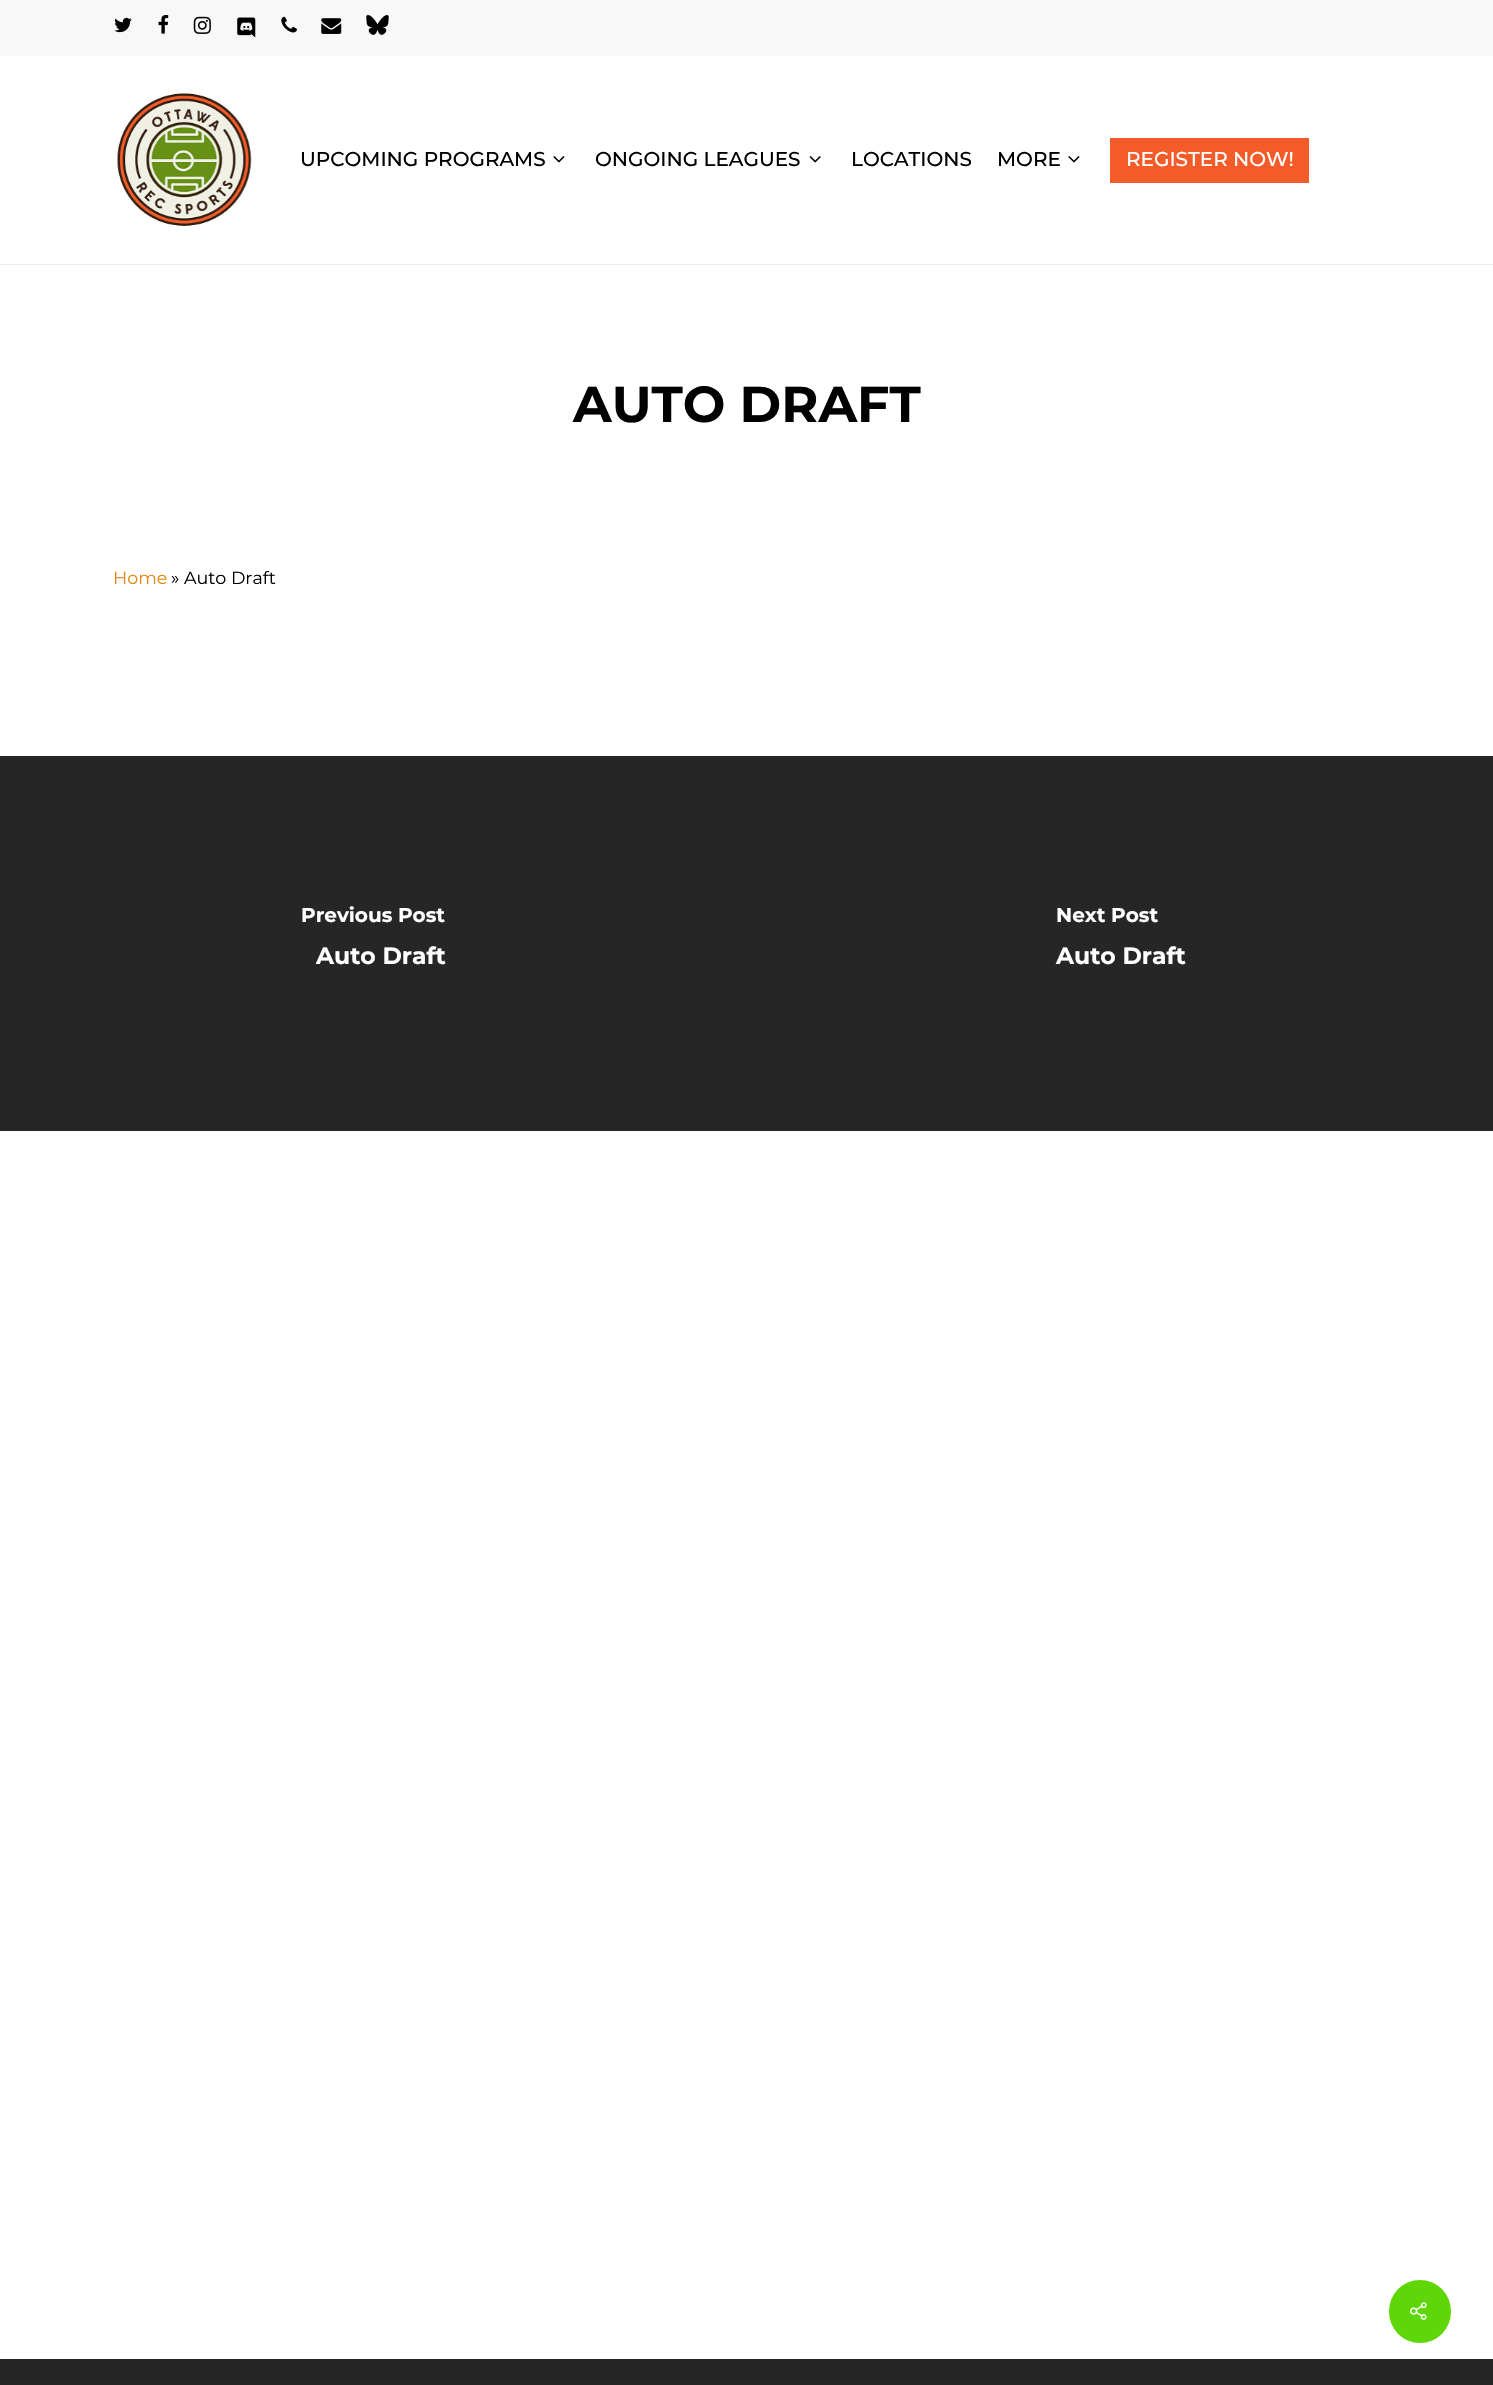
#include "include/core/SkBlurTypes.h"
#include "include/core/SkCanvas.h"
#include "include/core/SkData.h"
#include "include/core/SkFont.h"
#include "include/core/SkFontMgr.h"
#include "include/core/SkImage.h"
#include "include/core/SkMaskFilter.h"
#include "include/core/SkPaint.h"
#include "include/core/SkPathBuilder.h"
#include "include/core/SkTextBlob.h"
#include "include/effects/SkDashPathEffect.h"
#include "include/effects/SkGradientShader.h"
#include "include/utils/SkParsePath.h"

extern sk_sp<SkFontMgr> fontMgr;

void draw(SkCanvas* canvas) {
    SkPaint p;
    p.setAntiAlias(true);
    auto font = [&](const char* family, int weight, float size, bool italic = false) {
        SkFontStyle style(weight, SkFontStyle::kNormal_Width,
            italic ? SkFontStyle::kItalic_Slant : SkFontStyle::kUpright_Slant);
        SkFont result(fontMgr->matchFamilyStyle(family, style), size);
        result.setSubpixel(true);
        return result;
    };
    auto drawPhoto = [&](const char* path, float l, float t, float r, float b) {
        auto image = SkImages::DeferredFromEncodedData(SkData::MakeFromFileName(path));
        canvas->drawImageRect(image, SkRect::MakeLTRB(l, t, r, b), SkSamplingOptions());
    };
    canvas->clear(0xFFFFFFFF);
    p.setColor(0xFFEBEBEB);
    canvas->drawPath(SkPathBuilder().moveTo(0, 264).lineTo(0, 265).lineTo(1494, 265).lineTo(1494, 1).lineTo(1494, 264).close().detach(), p);
    p.setColor(0xFFF8F8F8);
    canvas->drawRect(SkRect::MakeLTRB(0, 0, 1493, 56), p);
    drawPhoto("media/1.png", 114, 17, 132, 33);
    drawPhoto("media/2.png", 158, 15, 169, 34);
    drawPhoto("media/3.png", 193, 16, 211, 34);
    drawPhoto("media/4.png", 237, 17, 256, 38);
    drawPhoto("media/5.png", 281, 16, 297, 33);
    drawPhoto("media/6.png", 321, 18, 342, 34);
    drawPhoto("media/7.png", 366, 15, 389, 35);
    drawPhoto("media/8.png", 117, 93, 252, 226);
    auto font1 = font("Montserrat", 500, 20);
    p.setColor(0xFF000000);
    canvas->drawString("UPCOMING PROGRAMS", 300, 166, font1, p);
    drawPhoto("media/9.png", 553, 156, 565, 163);
    canvas->drawString("ONGOING LEAGUES", 595, 166, font1, p);
    drawPhoto("media/10.png", 809, 156, 821, 163);
    canvas->drawString("LOCATIONS", 851, 166, font1, p);
    canvas->drawString("MORE", 997, 166, font1, p);
    drawPhoto("media/9.png", 1068, 156, 1080, 163);
    p.setColor(0xFFF35C29);
    canvas->drawRect(SkRect::MakeLTRB(1110, 138, 1309, 183), p);
    p.setColor(0xFFFFFFFF);
    canvas->drawString("REGISTER NOW!", 1126, 166, font1, p);
    auto font2 = font("Montserrat", 700, 50.5f);
    p.setColor(0xFF000000);
    canvas->drawString("AUTO DRAFT", 573, 422, font2, p);
    auto font3 = font("Montserrat", 400, 17.5f);
    p.setColor(0xFFE28812);
    canvas->drawString("Home", 113, 584, font3, p);
    p.setColor(0xFF000000);
    canvas->drawString("» Auto Draft", 171, 584, font3, p);
    p.setColor(0xFF262626);
    canvas->drawRect(SkRect::MakeLTRB(0, 756, 1493, 1131), p);
    auto font4 = font("Montserrat", 700, 20);
    p.setColor(0xFFFFFFFF);
    canvas->drawString("Previous Post", 301, 922, font4, p);
    auto font5 = font("Montserrat", 700, 23.5f);
    canvas->drawString("Auto Draft", 316, 964, font5, p);
    canvas->drawString("Next Post", 1056, 922, font4, p);
    canvas->drawString("Auto Draft", 1056, 964, font5, p);
    p.setColor(0xFF5ED608);
    canvas->drawRoundRect(SkRect::MakeLTRB(1389, 2280, 1451, 2343), 31, 31, p);
    drawPhoto("media/11.png", 1410, 2302, 1427, 2320);
    p.setColor(0xFF252525);
    canvas->drawRect(SkRect::MakeLTRB(0, 2359, 1493, 2385), p);
}
